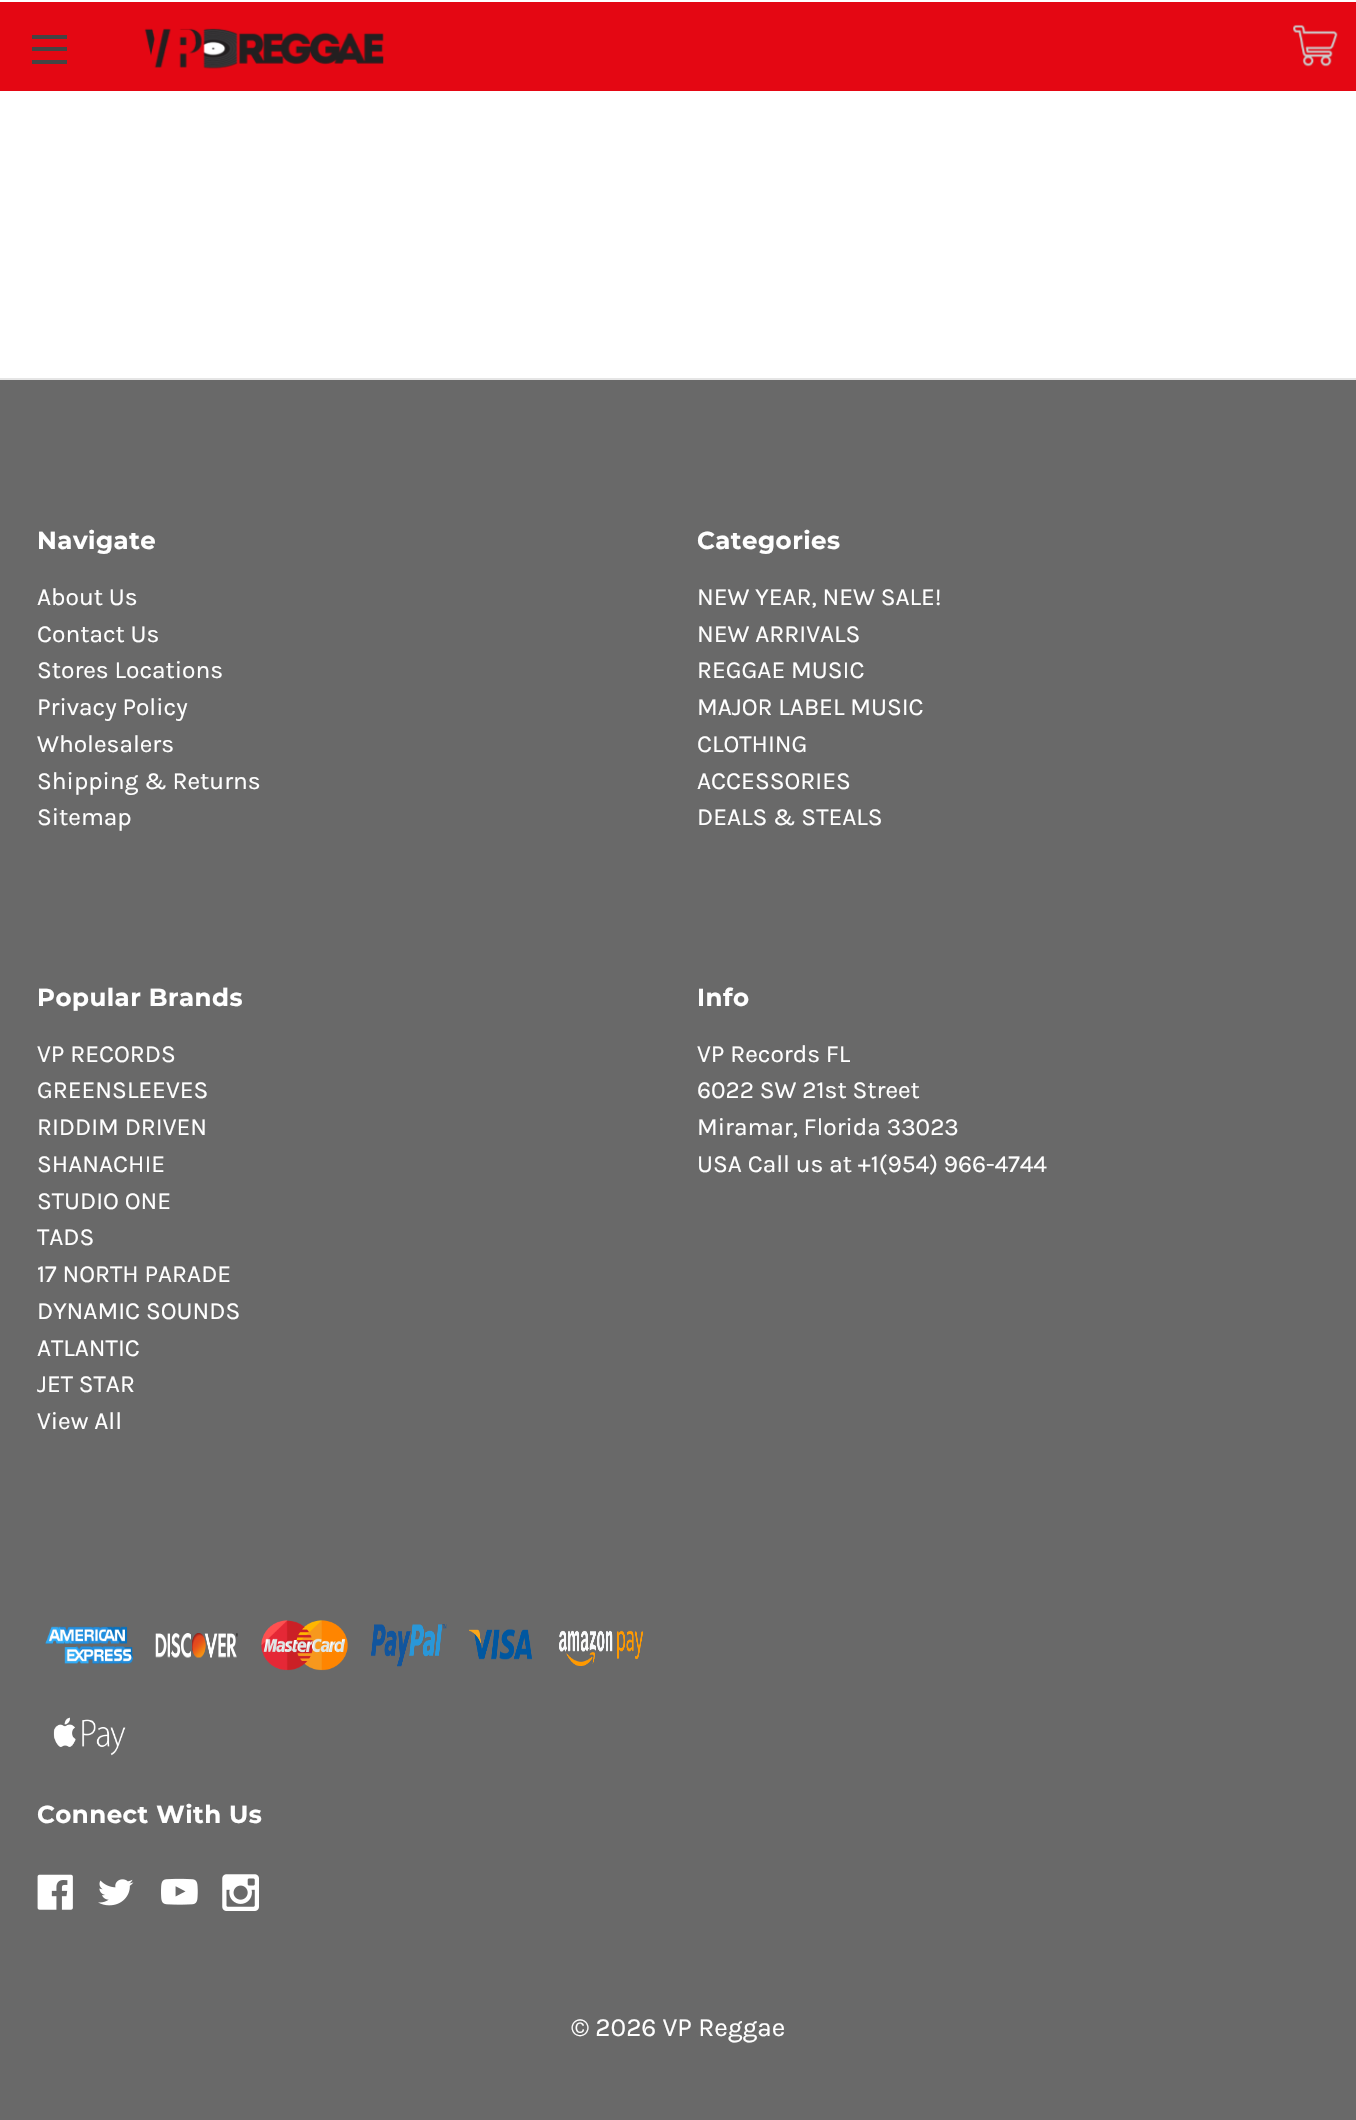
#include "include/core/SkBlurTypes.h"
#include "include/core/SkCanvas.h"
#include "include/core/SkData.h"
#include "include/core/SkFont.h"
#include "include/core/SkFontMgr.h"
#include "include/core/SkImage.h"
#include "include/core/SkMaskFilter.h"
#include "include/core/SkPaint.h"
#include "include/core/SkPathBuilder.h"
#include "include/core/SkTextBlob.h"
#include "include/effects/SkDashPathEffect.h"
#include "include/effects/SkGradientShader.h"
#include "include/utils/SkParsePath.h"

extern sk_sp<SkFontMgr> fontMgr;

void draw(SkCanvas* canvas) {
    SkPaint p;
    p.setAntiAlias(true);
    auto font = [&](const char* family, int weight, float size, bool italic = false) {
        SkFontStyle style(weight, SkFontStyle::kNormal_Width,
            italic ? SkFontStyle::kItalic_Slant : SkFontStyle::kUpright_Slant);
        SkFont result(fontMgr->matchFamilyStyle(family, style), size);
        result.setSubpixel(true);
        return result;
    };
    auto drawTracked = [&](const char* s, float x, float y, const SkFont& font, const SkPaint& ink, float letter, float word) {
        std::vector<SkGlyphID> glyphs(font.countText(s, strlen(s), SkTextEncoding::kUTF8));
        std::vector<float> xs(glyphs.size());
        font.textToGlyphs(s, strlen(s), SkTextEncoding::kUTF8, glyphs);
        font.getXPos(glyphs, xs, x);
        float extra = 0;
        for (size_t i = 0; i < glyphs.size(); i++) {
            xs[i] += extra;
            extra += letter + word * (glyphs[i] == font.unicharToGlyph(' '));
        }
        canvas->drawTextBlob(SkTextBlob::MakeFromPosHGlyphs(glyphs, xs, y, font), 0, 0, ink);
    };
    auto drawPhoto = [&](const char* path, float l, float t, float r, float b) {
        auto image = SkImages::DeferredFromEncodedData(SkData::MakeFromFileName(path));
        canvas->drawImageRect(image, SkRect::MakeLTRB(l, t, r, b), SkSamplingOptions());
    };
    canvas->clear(0xFFFFFFFF);
    p.setColor(0xFFE40713);
    canvas->drawRect(SkRect::MakeLTRB(0, 2, 1356, 91), p);
    drawPhoto("media/1.png", 1293, 24, 1338, 67);
    {
        const struct { float l, t, r, b; SkColor color; } items[] = {
            {32, 47, 67, 51, 0xFF444444},
            {32, 35, 67, 39, 0xFF444444},
            {32, 60, 67, 64, 0xFF444444},
        };
        for (auto [l, t, r, b, color] : items) {
            p.setColor(color);
            canvas->drawRect(SkRect::MakeLTRB(l, t, r, b), p);
        }
    }
    drawPhoto("media/2.png", 144, 28, 384, 69);
    p.setColor(0xFF696969);
    canvas->drawRect(SkRect::MakeLTRB(0, 380, 1356, 2120), p);
    p.setColor(0xFFE5E5E5);
    canvas->drawRect(SkRect::MakeLTRB(0, 378, 1356, 380), p);
    auto font1 = font("Montserrat", 700, 24.5f);
    p.setColor(0xFFFFFFFF);
    drawTracked("Navigate", 37, 549, font1, p, 0.5f, 0);
    auto font2 = font("Karla", 400, 24.5f);
    {
        const struct { const char* s; float x, y; } items[] = {
            {"About Us", 37, 605},
            {"Contact Us", 37, 642},
            {"Stores Locations", 37, 678},
            {"Privacy Policy", 37, 715},
            {"Wholesalers", 37, 752},
            {"Shipping & Returns", 37, 789},
            {"Sitemap", 37, 825},
        };
        for (auto [s, x, y] : items) {
            canvas->drawString(s, x, y, font2, p);
        }
    }
    drawTracked("Categories", 697, 549, font1, p, 0.5f, 0);
    {
        const struct { const char* s; float x, y; } items[] = {
            {"NEW YEAR, NEW SALE!", 697, 605},
            {"NEW ARRIVALS", 697, 642},
            {"REGGAE MUSIC", 697, 678},
            {"MAJOR LABEL MUSIC", 697, 715},
            {"CLOTHING", 697, 752},
            {"ACCESSORIES", 697, 789},
            {"DEALS & STEALS", 697, 825},
        };
        for (auto [s, x, y] : items) {
            canvas->drawString(s, x, y, font2, p);
        }
    }
    drawTracked("Popular Brands", 37, 1006, font1, p, 0.5f, 0);
    {
        const struct { const char* s; float x, y; } items[] = {
            {"VP RECORDS", 37, 1062},
            {"GREENSLEEVES", 37, 1098},
            {"RIDDIM DRIVEN", 37, 1135},
            {"SHANACHIE", 37, 1172},
            {"STUDIO ONE", 37, 1209},
            {"TADS", 37, 1245},
            {"17 NORTH PARADE", 37, 1282},
            {"DYNAMIC SOUNDS", 37, 1319},
            {"ATLANTIC", 37, 1356},
            {"JET STAR", 37, 1392},
            {"View All", 37, 1429},
        };
        for (auto [s, x, y] : items) {
            canvas->drawString(s, x, y, font2, p);
        }
    }
    drawTracked("Info", 697, 1006, font1, p, 0.5f, 0);
    {
        const struct { const char* s; float x, y; } items[] = {
            {"VP Records FL", 697, 1062},
            {"6022 SW 21st Street", 697, 1098},
            {"Miramar, Florida 33023", 697, 1135},
            {"USA Call us at +1(954) 966-4744", 697, 1172},
        };
        for (auto [s, x, y] : items) {
            canvas->drawString(s, x, y, font2, p);
        }
    }
    drawPhoto("media/3.png", 45, 1626, 133, 1664);
    drawPhoto("media/4.png", 155, 1633, 238, 1658);
    drawPhoto("media/5.png", 261, 1620, 348, 1671);
    drawPhoto("media/6.png", 371, 1624, 447, 1667);
    drawPhoto("media/7.png", 469, 1629, 532, 1660);
    drawPhoto("media/8.png", 559, 1630, 643, 1666);
    drawPhoto("media/9.png", 53, 1717, 126, 1756);
    drawTracked("Connect With Us", 37, 1823, font1, p, 0.5f, 0);
    drawPhoto("media/10.png", 37, 1874, 73, 1910);
    drawPhoto("media/11.png", 98, 1879, 134, 1906);
    drawPhoto("media/12.png", 161, 1878, 198, 1905);
    drawPhoto("media/13.png", 222, 1874, 259, 1911);
    auto font3 = font("Karla", 400, 26.25f);
    canvas->drawString("© 2026 VP Reggae", 571, 2036, font3, p);
}
